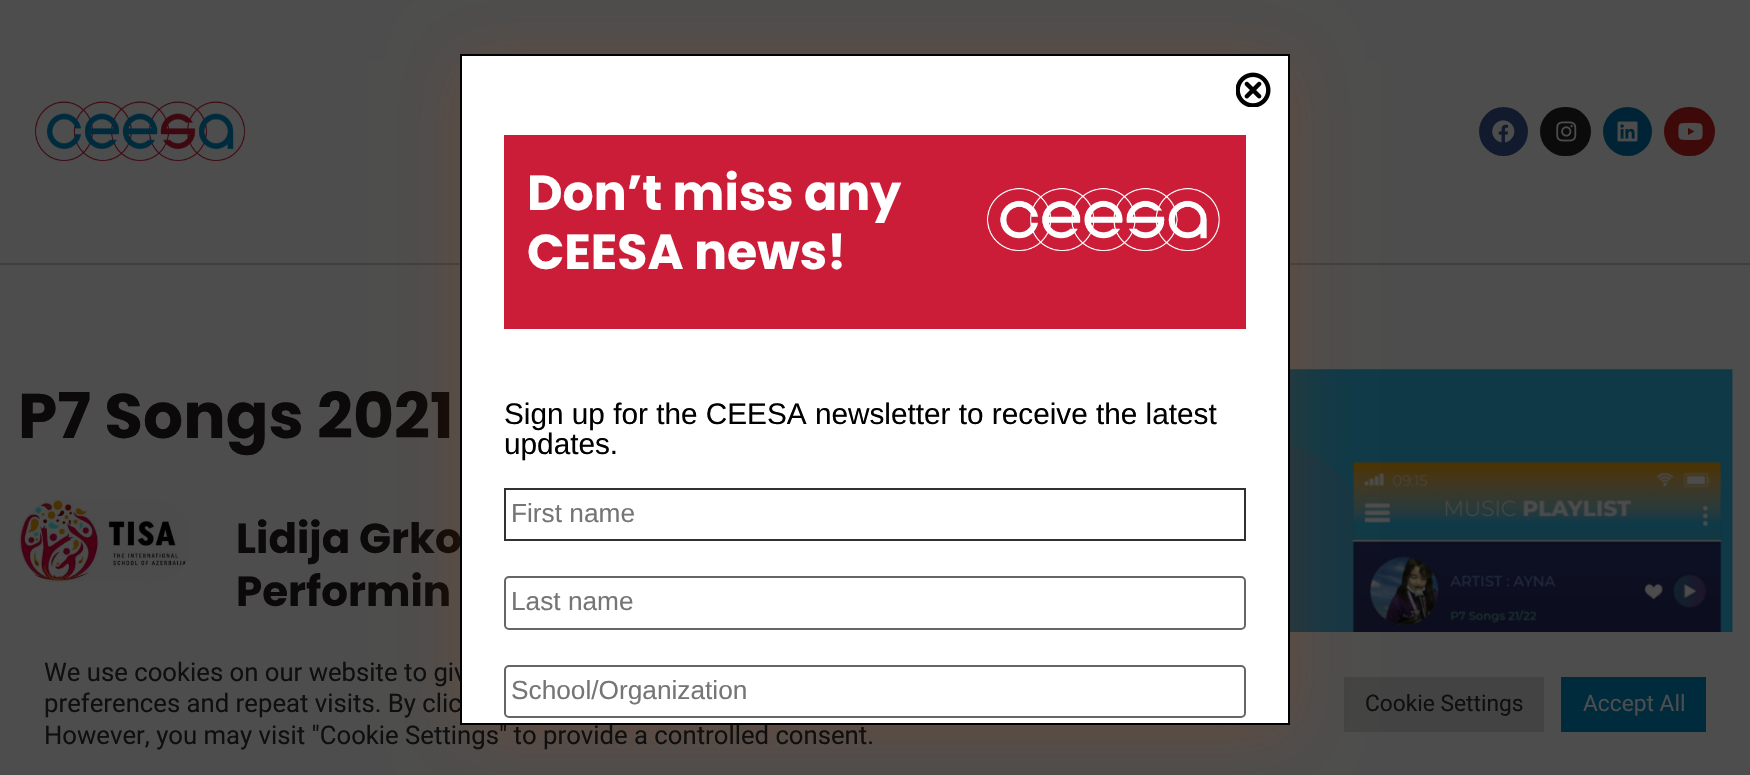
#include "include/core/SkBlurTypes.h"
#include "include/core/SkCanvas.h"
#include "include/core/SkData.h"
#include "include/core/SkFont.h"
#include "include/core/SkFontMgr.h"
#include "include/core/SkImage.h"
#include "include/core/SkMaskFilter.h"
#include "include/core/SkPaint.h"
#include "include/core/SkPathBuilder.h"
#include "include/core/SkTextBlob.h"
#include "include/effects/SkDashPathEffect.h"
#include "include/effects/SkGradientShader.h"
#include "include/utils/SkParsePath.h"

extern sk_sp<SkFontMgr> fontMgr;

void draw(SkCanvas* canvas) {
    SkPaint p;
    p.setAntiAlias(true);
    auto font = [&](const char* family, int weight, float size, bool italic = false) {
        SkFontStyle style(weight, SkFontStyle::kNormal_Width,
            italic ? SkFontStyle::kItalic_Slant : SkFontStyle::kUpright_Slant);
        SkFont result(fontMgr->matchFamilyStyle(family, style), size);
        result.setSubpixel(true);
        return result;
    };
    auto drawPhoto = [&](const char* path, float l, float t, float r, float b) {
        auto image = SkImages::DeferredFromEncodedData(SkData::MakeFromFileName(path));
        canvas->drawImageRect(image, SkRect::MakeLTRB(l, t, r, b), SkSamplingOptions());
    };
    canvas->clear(0xFF4D4D4D);
    p.setColor(0xFF3F3F3F);
    canvas->drawRect(SkRect::MakeLTRB(0, 263, 1750, 265), p);
    drawPhoto("media/1.png", 35, 101, 245, 161);
    p.setColor(0xFF121B2E);
    canvas->drawCircle(1503.5f, 131.5f, 24.5f, p);
    drawPhoto("media/2.png", 1492, 120, 1515, 143);
    p.setColor(0xFF0B0B0B);
    canvas->drawRoundRect(SkRect::MakeLTRB(1540, 107, 1591, 156), 24.5f, 24.5f, p);
    drawPhoto("media/3.png", 1556, 121, 1577, 142);
    p.setColor(0xFF002436);
    canvas->drawCircle(1627.5f, 131.5f, 24.5f, p);
    drawPhoto("media/4.png", 1617, 121, 1638, 142);
    p.setColor(0xFF3E0A09);
    canvas->drawRoundRect(SkRect::MakeLTRB(1664, 107, 1715, 156), 24.5f, 24.5f, p);
    drawPhoto("media/5.png", 1678, 122, 1703, 140);
    auto font1 = font("Poppins", 700, 63);
    p.setColor(0xFF0B090A);
    canvas->drawString("P7 Songs 2021", 18, 438, font1, p);
    drawPhoto("media/6.png", 18, 499, 188, 583);
    auto font2 = font("Poppins", 700, 42);
    canvas->drawString("Lidija Grko", 236, 553, font2, p);
    canvas->drawString("Performin", 236, 606, font2, p);
    drawPhoto("media/7.png", 1290, 369, 1733, 632);
    p.setColor(0xFF434343);
    canvas->drawRect(SkRect::MakeLTRB(1344, 677, 1544, 732), p);
    p.setColor(0x33C34102);
    p.setMaskFilter(SkMaskFilter::MakeBlur(kNormal_SkBlurStyle, 30.5f));
    canvas->drawRect(SkRect::MakeLTRB(460, 61, 1290, 732), p);
    p.setMaskFilter(nullptr);
    auto font3 = font("Roboto", 400, 25.7f);
    p.setColor(0xFF0F0F0F);
    canvas->drawString("We use cookies on our website to giv", 44, 681, font3, p);
    canvas->drawString("However, you may visit \"Cookie Settings\" to provide a controlled consent.", 44, 744, font3, p);
    p.setColor(0xFFFFFFFF);
    canvas->drawRect(SkRect::MakeLTRB(461, 55, 1289, 724), p);
    p.setStyle(SkPaint::kStroke_Style);
    p.setStrokeWidth(2);
    p.setColor(0xFF000000);
    canvas->drawRect(SkRect::MakeLTRB(461, 55, 1289, 724), p);
    drawPhoto("media/8.png", 1236, 72, 1271, 107);
    p.setStyle(SkPaint::kFill_Style);
    p.setColor(0xFFCB1C38);
    canvas->drawRect(SkRect::MakeLTRB(504, 135, 1246, 329), p);
    auto font4 = font("Poppins", 700, 49);
    p.setColor(0xFFFFFFFF);
    canvas->drawString("Don’t miss any", 527, 210, font4, p);
    canvas->drawString("CEESA news!", 527, 269, font4, p);
    drawPhoto("media/9.png", 986, 188, 1220, 251);
    auto font5 = font("Liberation Sans", 400, 29.75f);
    p.setColor(0xFF000000);
    canvas->drawString("Sign up for the CEESA newsletter to receive the latest", 504, 424, font5, p);
    canvas->drawString("updates.", 504, 454, font5, p);
    p.setStyle(SkPaint::kStroke_Style);
    p.setColor(0xFF313131);
    canvas->drawRect(SkRect::MakeLTRB(505, 489, 1245, 540), p);
    auto font6 = font("Liberation Sans", 400, 26.25f);
    p.setStyle(SkPaint::kFill_Style);
    p.setColor(0xFF757575);
    canvas->drawString("First name", 511, 522, font6, p);
    p.setStyle(SkPaint::kStroke_Style);
    p.setColor(0xFF666666);
    canvas->drawRoundRect(SkRect::MakeLTRB(505, 577, 1245, 629), 4, 4, p);
    p.setStyle(SkPaint::kFill_Style);
    p.setColor(0xFF757575);
    canvas->drawString("Last name", 511, 610, font6, p);
    p.setStyle(SkPaint::kStroke_Style);
    p.setColor(0xFF666666);
    canvas->drawRoundRect(SkRect::MakeLTRB(505, 666, 1245, 717), 4, 4, p);
    p.setStyle(SkPaint::kFill_Style);
    p.setColor(0xFF757575);
    canvas->drawString("School/Organization", 511, 699, font6, p);
    p.setColor(0xFF0F0F0F);
    canvas->drawString("preferences and repeat visits. By clic", 44, 712, font3, p);
    auto font7 = font("Roboto", 400, 22.75f);
    canvas->drawString("Cookie Settings", 1365, 711, font7, p);
    p.setColor(0xFF002B3D);
    canvas->drawRect(SkRect::MakeLTRB(1561, 677, 1706, 732), p);
    p.setColor(0xFF4D4D4D);
    canvas->drawString("Accept All", 1583, 711, font7, p);
}
